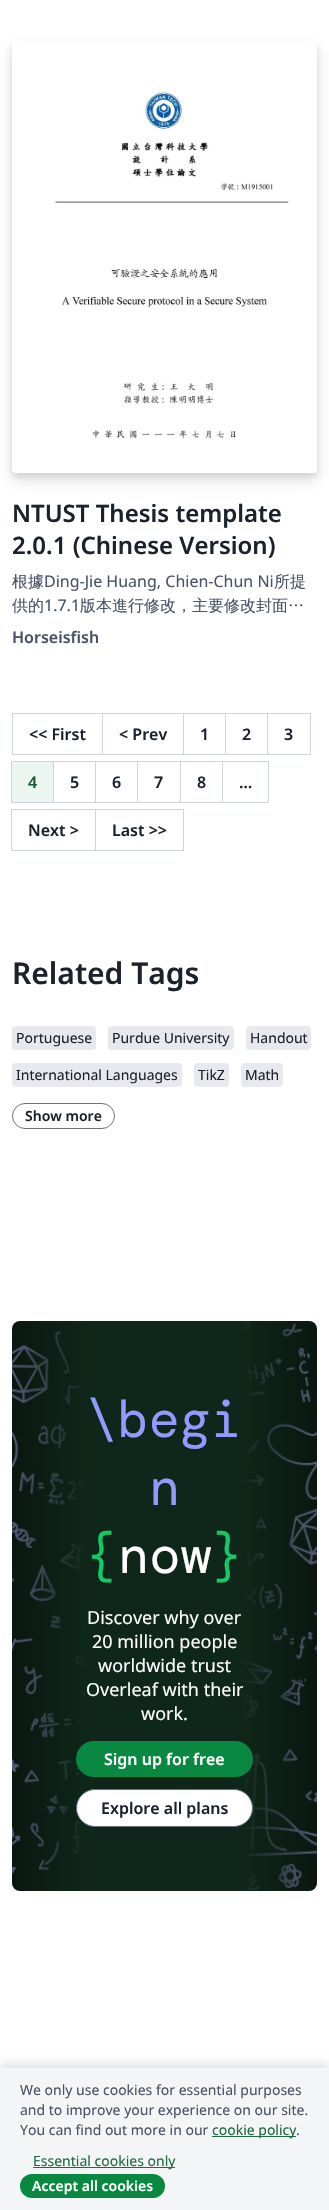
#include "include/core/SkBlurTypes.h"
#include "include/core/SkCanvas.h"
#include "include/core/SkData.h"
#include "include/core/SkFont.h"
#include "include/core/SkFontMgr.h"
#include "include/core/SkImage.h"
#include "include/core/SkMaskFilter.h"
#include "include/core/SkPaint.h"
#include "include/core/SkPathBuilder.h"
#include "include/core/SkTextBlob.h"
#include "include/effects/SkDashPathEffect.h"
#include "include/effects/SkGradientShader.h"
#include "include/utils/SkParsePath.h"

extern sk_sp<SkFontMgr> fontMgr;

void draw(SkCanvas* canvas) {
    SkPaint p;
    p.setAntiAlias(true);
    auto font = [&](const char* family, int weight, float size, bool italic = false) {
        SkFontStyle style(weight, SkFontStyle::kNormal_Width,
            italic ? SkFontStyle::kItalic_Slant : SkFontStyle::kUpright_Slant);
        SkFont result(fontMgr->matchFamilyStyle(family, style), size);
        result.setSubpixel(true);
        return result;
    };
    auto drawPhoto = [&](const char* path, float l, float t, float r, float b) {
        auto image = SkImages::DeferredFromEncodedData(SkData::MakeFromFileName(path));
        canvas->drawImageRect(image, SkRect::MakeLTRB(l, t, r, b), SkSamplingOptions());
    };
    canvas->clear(0xFFFFFFFF);
    canvas->save();
    canvas->clipPath(SkPathBuilder(SkPathFillType::kEvenOdd).moveTo(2, 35).lineTo(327, 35).lineTo(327, 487).lineTo(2, 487).close().moveTo(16, 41).lineTo(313, 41).cubicTo(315, 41, 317, 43, 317, 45).lineTo(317, 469).cubicTo(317, 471, 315, 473, 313, 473).lineTo(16, 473).cubicTo(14, 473, 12, 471, 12, 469).lineTo(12, 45).cubicTo(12, 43, 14, 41, 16, 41).close().detach(), true);
    p.setColor(0x1F1E2530);
    p.setMaskFilter(SkMaskFilter::MakeBlur(kNormal_SkBlurStyle, 3));
    canvas->drawRoundRect(SkRect::MakeLTRB(12, 45, 317, 477), 4, 4, p);
    p.setMaskFilter(nullptr);
    canvas->restore();
    canvas->save();
    canvas->clipPath(SkPathBuilder(SkPathFillType::kEvenOdd).moveTo(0, 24).lineTo(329, 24).lineTo(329, 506).lineTo(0, 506).close().moveTo(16, 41).lineTo(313, 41).cubicTo(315, 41, 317, 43, 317, 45).lineTo(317, 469).cubicTo(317, 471, 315, 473, 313, 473).lineTo(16, 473).cubicTo(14, 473, 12, 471, 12, 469).lineTo(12, 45).cubicTo(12, 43, 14, 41, 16, 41).close().detach(), true);
    p.setMaskFilter(SkMaskFilter::MakeBlur(kNormal_SkBlurStyle, 8));
    canvas->drawRoundRect(SkRect::MakeLTRB(12, 49, 317, 481), 4, 4, p);
    p.setMaskFilter(nullptr);
    canvas->restore();
    drawPhoto("media/1.png", 12, 90, 317, 473);
    auto font1 = font("Noto Sans", 600, 24);
    p.setColor(0xFF1B222C);
    canvas->drawString("NTUST Thesis template", 12, 522, font1, p);
    canvas->drawString("2.0.1 (Chinese Version)", 12, 554, font1, p);
    auto font2 = font("WenQuanYi Zen Hei", 500, 16);
    p.setColor(0xFF495365);
    canvas->drawString("根據", 12, 587, font2, p);
    auto font3 = font("Noto Sans", 400, 16);
    canvas->drawString("Ding-Jie Huang, Chien-Chun Ni", 44, 587, font3, p);
    canvas->drawString("所提", 274, 587, font2, p);
    canvas->drawString("供的", 12, 611, font2, p);
    canvas->drawString("1.7.1", 44, 611, font3, p);
    canvas->drawString("版本進行修改，主要修改封面…", 80, 611, font2, p);
    auto font4 = font("Noto Sans", 600, 16);
    canvas->drawString("Horseisfish", 12, 643, font4, p);
    p.setStyle(SkPaint::kStroke_Style);
    p.setStrokeWidth(1);
    p.setColor(0xFFD0D5DD);
    canvas->drawRect(SkRect::MakeLTRB(12.5f, 713.5f, 102.5f, 754.5f), p);
    p.setStyle(SkPaint::kFill_Style);
    p.setColor(0xFF1B222C);
    canvas->drawString("<< First", 29, 740, font4, p);
    p.setStyle(SkPaint::kStroke_Style);
    p.setColor(0xFFD0D5DD);
    canvas->drawRect(SkRect::MakeLTRB(102.5f, 713.5f, 183.5f, 754.5f), p);
    p.setStyle(SkPaint::kFill_Style);
    p.setColor(0xFF1B222C);
    canvas->drawString("< Prev", 119, 740, font4, p);
    p.setStyle(SkPaint::kStroke_Style);
    p.setColor(0xFFD0D5DD);
    canvas->drawRect(SkRect::MakeLTRB(183.5f, 713.5f, 225.5f, 754.5f), p);
    p.setStyle(SkPaint::kFill_Style);
    p.setColor(0xFF1B222C);
    canvas->drawString("1", 200, 740, font4, p);
    p.setStyle(SkPaint::kStroke_Style);
    p.setColor(0xFFD0D5DD);
    canvas->drawRect(SkRect::MakeLTRB(225.5f, 713.5f, 267.5f, 754.5f), p);
    p.setStyle(SkPaint::kFill_Style);
    p.setColor(0xFF1B222C);
    canvas->drawString("2", 242, 740, font4, p);
    p.setStyle(SkPaint::kStroke_Style);
    p.setColor(0xFFD0D5DD);
    canvas->drawRect(SkRect::MakeLTRB(267.5f, 713.5f, 310.5f, 754.5f), p);
    p.setStyle(SkPaint::kFill_Style);
    p.setColor(0xFF1B222C);
    canvas->drawString("3", 284, 740, font4, p);
    p.setStyle(SkPaint::kStroke_Style);
    p.setColor(0xFFD0D5DD);
    canvas->drawRect(SkRect::MakeLTRB(53.5f, 761.5f, 95.5f, 802.5f), p);
    p.setStyle(SkPaint::kFill_Style);
    p.setColor(0xFFEAF6EF);
    canvas->drawRect(SkRect::MakeLTRB(11.5f, 761.5f, 53.5f, 802.5f), p);
    p.setStyle(SkPaint::kStroke_Style);
    p.setColor(0xFFD0D5DD);
    canvas->drawRect(SkRect::MakeLTRB(11.5f, 761.5f, 53.5f, 802.5f), p);
    p.setStyle(SkPaint::kFill_Style);
    p.setColor(0xFF195936);
    canvas->drawString("4", 28, 788, font4, p);
    p.setColor(0xFF1B222C);
    canvas->drawString("5", 70, 788, font4, p);
    p.setStyle(SkPaint::kStroke_Style);
    p.setColor(0xFFD0D5DD);
    canvas->drawRect(SkRect::MakeLTRB(95.5f, 761.5f, 137.5f, 802.5f), p);
    p.setStyle(SkPaint::kFill_Style);
    p.setColor(0xFF1B222C);
    canvas->drawString("6", 112, 788, font4, p);
    p.setStyle(SkPaint::kStroke_Style);
    p.setColor(0xFFD0D5DD);
    canvas->drawRect(SkRect::MakeLTRB(137.5f, 761.5f, 180.5f, 802.5f), p);
    p.setStyle(SkPaint::kFill_Style);
    p.setColor(0xFF1B222C);
    canvas->drawString("7", 154, 788, font4, p);
    p.setStyle(SkPaint::kStroke_Style);
    p.setColor(0xFFD0D5DD);
    canvas->drawRect(SkRect::MakeLTRB(180.5f, 761.5f, 222.5f, 802.5f), p);
    p.setStyle(SkPaint::kFill_Style);
    p.setColor(0xFF1B222C);
    canvas->drawString("8", 197, 788, font4, p);
    p.setStyle(SkPaint::kStroke_Style);
    p.setColor(0xFFD0D5DD);
    canvas->drawRect(SkRect::MakeLTRB(222.5f, 761.5f, 268.5f, 802.5f), p);
    p.setStyle(SkPaint::kFill_Style);
    p.setColor(0xFF1B222C);
    canvas->drawString("…", 239, 788, font4, p);
    p.setStyle(SkPaint::kStroke_Style);
    p.setColor(0xFFD0D5DD);
    canvas->drawRect(SkRect::MakeLTRB(11.5f, 809.5f, 95.5f, 850.5f), p);
    p.setStyle(SkPaint::kFill_Style);
    p.setColor(0xFF1B222C);
    canvas->drawString("Next >", 28, 836, font4, p);
    p.setStyle(SkPaint::kStroke_Style);
    p.setColor(0xFFD0D5DD);
    canvas->drawRect(SkRect::MakeLTRB(95.5f, 809.5f, 183.5f, 850.5f), p);
    p.setStyle(SkPaint::kFill_Style);
    p.setColor(0xFF1B222C);
    canvas->drawString("Last >>", 112, 836, font4, p);
    auto font5 = font("Noto Sans", 600, 30);
    canvas->drawString("Related Tags", 12, 984, font5, p);
    p.setColor(0xFFE7E9EE);
    canvas->drawRoundRect(SkRect::MakeLTRB(12, 1026, 96, 1050), 4, 4, p);
    auto font6 = font("Noto Sans", 400, 14);
    p.setColor(0xFF1B222C);
    canvas->drawString("Portuguese", 16, 1043, font6, p);
    p.setColor(0xFFE7E9EE);
    canvas->drawRoundRect(SkRect::MakeLTRB(108, 1026, 234, 1050), 4, 4, p);
    p.setColor(0xFF1B222C);
    canvas->drawString("Purdue University", 112, 1043, font6, p);
    p.setColor(0xFFE7E9EE);
    canvas->drawRoundRect(SkRect::MakeLTRB(246, 1026, 311, 1050), 4, 4, p);
    p.setColor(0xFF1B222C);
    canvas->drawString("Handout", 250, 1043, font6, p);
    p.setColor(0xFFE7E9EE);
    canvas->drawRoundRect(SkRect::MakeLTRB(12, 1063, 182, 1087), 4, 4, p);
    p.setColor(0xFF1B222C);
    canvas->drawString("International Languages", 16, 1080, font6, p);
    p.setColor(0xFFE7E9EE);
    canvas->drawRoundRect(SkRect::MakeLTRB(194, 1063, 229, 1087), 4, 4, p);
    p.setColor(0xFF1B222C);
    canvas->drawString("TikZ", 198, 1080, font6, p);
    p.setColor(0xFFE7E9EE);
    canvas->drawRoundRect(SkRect::MakeLTRB(241, 1063, 283, 1087), 4, 4, p);
    p.setColor(0xFF1B222C);
    canvas->drawString("Math", 245, 1080, font6, p);
    p.setStyle(SkPaint::kStroke_Style);
    p.setColor(0xFF677283);
    canvas->drawRoundRect(SkRect::MakeLTRB(12.5f, 1103.5f, 114.5f, 1128.5f), 12.5f, 12.5f, p);
    auto font7 = font("Noto Sans", 600, 14);
    p.setStyle(SkPaint::kFill_Style);
    p.setColor(0xFF1B222C);
    canvas->drawString("Show more", 25, 1121, font7, p);
    p.setColor(0xFFF4F5F6);
    canvas->drawRoundRect(SkRect::MakeLTRB(12, 1321, 317, 1891), 8, 8, p);
    drawPhoto("media/2.png", 12, 1321, 317, 1891);
    auto font8 = font("DM Mono", 400, 52);
    p.setColor(0xFF939AFF);
    canvas->drawString("\\begi", 86, 1437, font8, p);
    canvas->drawString("n", 149, 1505, font8, p);
    p.setColor(0xFF13C965);
    canvas->drawString("{", 86, 1573, font8, p);
    p.setColor(0xFFFFFFFF);
    canvas->drawString("now", 118, 1573, font8, p);
    p.setColor(0xFF13C965);
    canvas->drawString("}", 211, 1573, font8, p);
    auto font9 = font("Noto Sans", 400, 18);
    p.setColor(0xFFFFFFFF);
    {
        const struct { const char* s; float x, y; } items[] = {
            {"Discover why over", 87, 1624},
            {"20 million people", 92, 1648},
            {"worldwide trust", 98, 1672},
            {"Overleaf with their", 86, 1696},
            {"work.", 141, 1720},
        };
        for (auto [s, x, y] : items) {
            canvas->drawString(s, x, y, font9, p);
        }
    }
    p.setColor(0xFF098842);
    canvas->drawRoundRect(SkRect::MakeLTRB(76, 1741, 253, 1777), 18, 18, p);
    p.setColor(0xFFFFFFFF);
    canvas->drawString("Sign up for free", 104, 1765, font4, p);
    canvas->drawRoundRect(SkRect::MakeLTRB(76.5f, 1789.5f, 252.5f, 1826.5f), 18.5f, 18.5f, p);
    p.setStyle(SkPaint::kStroke_Style);
    p.setColor(0xFF677283);
    canvas->drawRoundRect(SkRect::MakeLTRB(76.5f, 1789.5f, 252.5f, 1826.5f), 18.5f, 18.5f, p);
    p.setStyle(SkPaint::kFill_Style);
    p.setColor(0xFF1B222C);
    canvas->drawString("Explore all plans", 101, 1814, font4, p);
    p.setColor(0x1A000000);
    p.setMaskFilter(SkMaskFilter::MakeBlur(kNormal_SkBlurStyle, 4));
    canvas->drawRect(SkRect::MakeLTRB(0, 2063, 329, 2205), p);
    p.setMaskFilter(nullptr);
    p.setColor(0xFFF4F5F6);
    canvas->drawRect(SkRect::MakeLTRB(0, 2068, 329, 2210), p);
    p.setColor(0xFF495365);
    {
        const struct { const char* s; float x, y; } items[] = {
            {"We only use cookies for essential purposes", 20, 2095},
            {"and to improve your experience on our site.", 20, 2115},
            {"You can find out more in our", 20, 2135},
        };
        for (auto [s, x, y] : items) {
            canvas->drawString(s, x, y, font6, p);
        }
    }
    p.setColor(0xFF1E6B41);
    canvas->drawRect(SkRect::MakeLTRB(212, 2136, 296, 2137), p);
    canvas->drawString("cookie policy", 212, 2135, font6, p);
    p.setColor(0xFF495365);
    canvas->drawString(".", 296, 2135, font6, p);
    p.setColor(0xFF1E6B41);
    canvas->drawRect(SkRect::MakeLTRB(33, 2167, 175, 2168), p);
    canvas->drawString("Essential cookies only", 33, 2166, font6, p);
    p.setColor(0xFF098842);
    canvas->drawRoundRect(SkRect::MakeLTRB(20, 2174, 165, 2198), 12, 12, p);
    p.setColor(0xFFFFFFFF);
    canvas->drawString("Accept all cookies", 32, 2191, font7, p);
}
